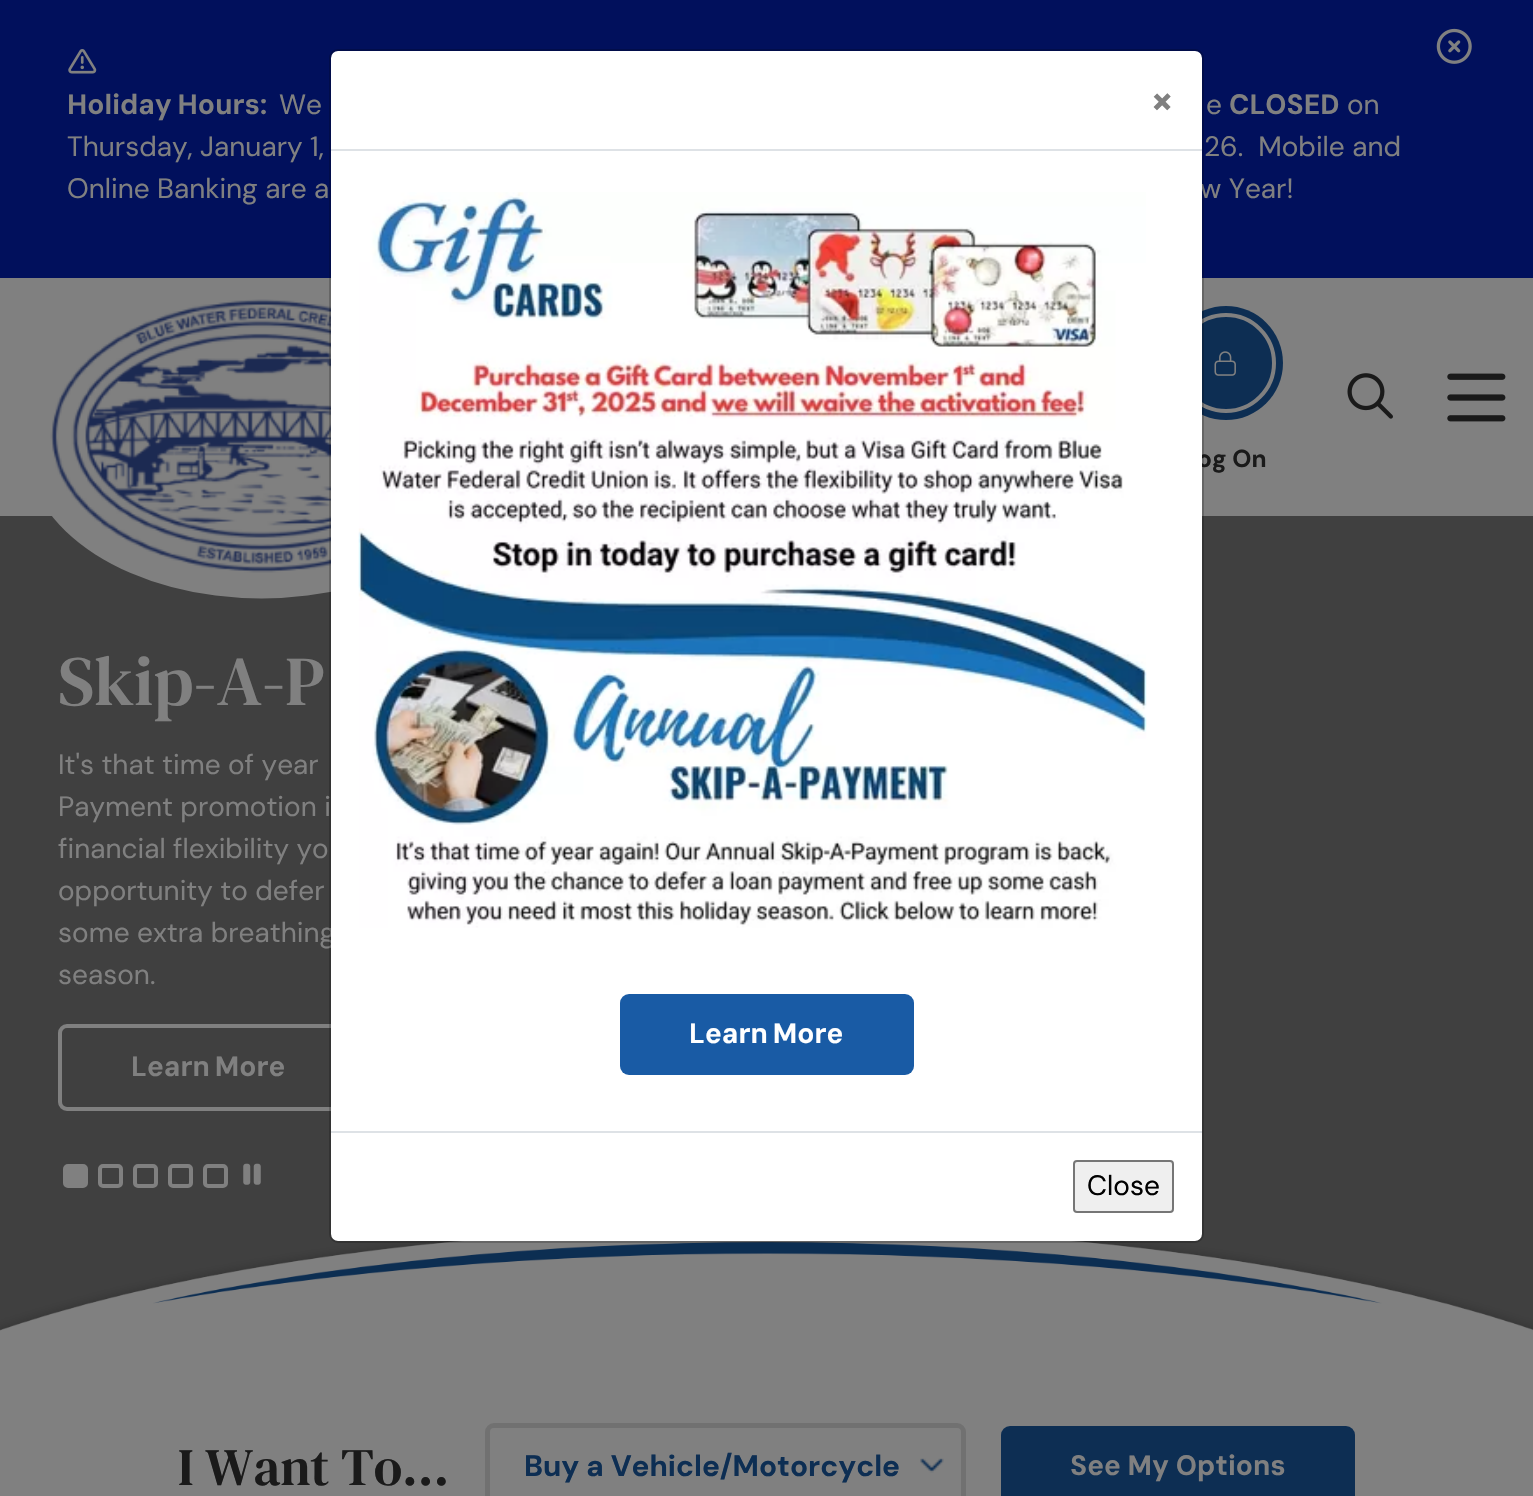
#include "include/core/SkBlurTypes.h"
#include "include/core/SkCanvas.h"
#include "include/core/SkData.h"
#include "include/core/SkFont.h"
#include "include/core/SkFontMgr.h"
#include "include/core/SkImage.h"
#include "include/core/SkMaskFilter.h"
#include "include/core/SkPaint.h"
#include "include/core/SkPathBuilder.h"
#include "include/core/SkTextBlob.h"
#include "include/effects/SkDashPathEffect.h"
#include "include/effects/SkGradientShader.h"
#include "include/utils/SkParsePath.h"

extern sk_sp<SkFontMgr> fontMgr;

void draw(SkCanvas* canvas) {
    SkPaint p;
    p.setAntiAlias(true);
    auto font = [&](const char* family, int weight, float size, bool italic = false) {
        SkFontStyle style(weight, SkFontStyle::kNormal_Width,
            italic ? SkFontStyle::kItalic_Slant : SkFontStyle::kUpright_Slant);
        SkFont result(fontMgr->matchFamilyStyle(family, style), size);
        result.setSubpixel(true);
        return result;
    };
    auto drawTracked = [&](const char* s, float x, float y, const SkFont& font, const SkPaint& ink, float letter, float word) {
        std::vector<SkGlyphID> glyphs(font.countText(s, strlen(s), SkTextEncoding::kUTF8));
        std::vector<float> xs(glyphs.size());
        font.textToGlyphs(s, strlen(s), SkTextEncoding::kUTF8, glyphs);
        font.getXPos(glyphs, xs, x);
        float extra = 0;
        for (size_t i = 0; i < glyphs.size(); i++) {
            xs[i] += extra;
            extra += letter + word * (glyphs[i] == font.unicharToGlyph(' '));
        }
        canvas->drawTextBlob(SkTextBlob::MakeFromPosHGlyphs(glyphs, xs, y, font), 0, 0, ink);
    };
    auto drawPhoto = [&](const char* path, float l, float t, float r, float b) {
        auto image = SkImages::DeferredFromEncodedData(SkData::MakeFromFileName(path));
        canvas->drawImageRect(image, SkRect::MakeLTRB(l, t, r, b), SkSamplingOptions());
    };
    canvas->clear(0xFF808080);
    p.setColor(0xFF01105C);
    canvas->drawRect(SkRect::MakeLTRB(0, 0, 1533, 278), p);
    drawPhoto("media/1.png", 68, 49, 97, 74);
    drawPhoto("media/2.png", 1436, 28, 1472, 64);
    auto font1 = font("DM Sans", 700, 28);
    p.setColor(0xFF808080);
    drawTracked("Holiday Hours:", 67, 114, font1, p, 0, -1);
    auto font2 = font("DM Sans", 400, 28);
    canvas->drawString("We", 279, 114, font2, p);
    canvas->drawString("e", 1206, 114, font2, p);
    canvas->drawString("CLOSED", 1229, 114, font1, p);
    {
        const struct { const char* s; float x, y; } items[] = {
            {"on", 1347, 114},
            {"Thursday, January 1,", 67, 156},
            {"26.  Mobile and", 1204, 156},
            {"Online Banking are a", 67, 198},
            {"w Year!", 1200, 198},
        };
        for (auto [s, x, y] : items) {
            canvas->drawString(s, x, y, font2, p);
        }
    }
    p.setColor(0xFF404040);
    canvas->drawRect(SkRect::MakeLTRB(0, 516, 1533, 1331), p);
    p.setColor(0xFF808080);
    canvas->drawOval(SkRect::MakeLTRB(26, 295.5f, 497, 598.5f), p);
    p.setColor(0xFF0D2E53);
    canvas->drawCircle(1226, 363, 57, p);
    drawPhoto("media/7.png", 1214, 351, 1236, 376);
    p.setStyle(SkPaint::kStroke_Style);
    p.setStrokeWidth(4);
    p.setColor(0xFF808080);
    canvas->drawCircle(1226, 363, 48, p);
    auto font3 = font("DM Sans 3", 700, 24.5f);
    p.setStyle(SkPaint::kFill_Style);
    p.setColor(0xFF1A1A1A);
    canvas->drawString("og On", 1197, 467, font3, p);
    p.setColor(0xFF808080);
    canvas->drawString("some extra breathing", 58, 942, font2, p);
    p.setStyle(SkPaint::kStroke_Style);
    canvas->drawRoundRect(SkRect::MakeLTRB(60, 1026, 357, 1109), 7, 7, p);
    p.setStyle(SkPaint::kFill_Style);
    p.setColor(0xFFFFFFFF);
    canvas->drawRoundRect(SkRect::MakeLTRB(331, 51, 1202, 1241), 7, 7, p);
    drawPhoto("media/4.png", 50, 299, 331, 573);
    drawPhoto("media/9.png", 0, 1241, 1533, 1339);
    p.setStyle(SkPaint::kStroke_Style);
    p.setStrokeWidth(2);
    p.setColor(0x33000000);
    canvas->drawRoundRect(SkRect::MakeLTRB(330, 50, 1203, 1242), 8, 8, p);
    p.setStyle(SkPaint::kFill_Style);
    p.setColor(0xFFDEE2E6);
    canvas->drawRect(SkRect::MakeLTRB(331, 149, 1202, 151), p);
    auto font4 = font("DM Sans", 700, 42);
    p.setColor(0xFF808080);
    canvas->drawString("×", 1150, 114, font4, p);
    drawPhoto("media/3.png", 358, 192, 1147, 928);
    p.setColor(0xFF195BA5);
    canvas->drawRoundRect(SkRect::MakeLTRB(620, 994, 914, 1075), 9, 9, p);
    p.setColor(0xFFFFFFFF);
    drawTracked("Learn More", 689, 1043, font1, p, 0, -2);
    p.setColor(0xFFDEE2E6);
    canvas->drawRect(SkRect::MakeLTRB(331, 1131, 1202, 1133), p);
    p.setColor(0xFFEFEFEF);
    canvas->drawRoundRect(SkRect::MakeLTRB(1074, 1161, 1173, 1212), 3, 3, p);
    p.setStyle(SkPaint::kStroke_Style);
    p.setColor(0xFF767676);
    canvas->drawRoundRect(SkRect::MakeLTRB(1074, 1161, 1173, 1212), 3, 3, p);
    p.setStyle(SkPaint::kFill_Style);
    p.setColor(0xFF000000);
    canvas->drawString("Close", 1087, 1195, font2, p);
    drawPhoto("media/5.png", 1347, 373, 1393, 419);
    drawPhoto("media/6.png", 1447, 373, 1506, 422);
    auto font5 = font("DM Serif Text", 400, 70);
    p.setColor(0xFF808080);
    canvas->drawString("Skip-A-P", 58, 705, font5, p);
    {
        const struct { const char* s; float x, y; } items[] = {
            {"It's that time of year", 58, 774},
            {"Payment promotion i", 58, 816},
            {"financial flexibility yo", 58, 858},
            {"opportunity to defer", 58, 900},
            {"season.", 58, 984},
        };
        for (auto [s, x, y] : items) {
            canvas->drawString(s, x, y, font2, p);
        }
    }
    drawTracked("Learn More", 131, 1076, font1, p, 0, -2);
    canvas->drawRoundRect(SkRect::MakeLTRB(65, 1166, 86, 1186), 3, 3, p);
    p.setStyle(SkPaint::kStroke_Style);
    p.setStrokeWidth(4);
    canvas->drawRoundRect(SkRect::MakeLTRB(65, 1166, 86, 1186), 3, 3, p);
    canvas->drawRoundRect(SkRect::MakeLTRB(100, 1166, 121, 1186), 3, 3, p);
    canvas->drawRoundRect(SkRect::MakeLTRB(135, 1166, 156, 1186), 3, 3, p);
    canvas->drawRoundRect(SkRect::MakeLTRB(170, 1166, 191, 1186), 3, 3, p);
    canvas->drawRoundRect(SkRect::MakeLTRB(205, 1166, 226, 1186), 3, 3, p);
    drawPhoto("media/8.png", 243, 1163, 261, 1185);
    auto font6 = font("DM Serif Text", 400, 52.5f);
    p.setStyle(SkPaint::kFill_Style);
    p.setColor(0xFF1A1A1A);
    canvas->drawString("I Want To...", 178, 1485, font6, p);
    drawPhoto("media/10.png", 920, 1458, 944, 1473);
    p.setStyle(SkPaint::kStroke_Style);
    p.setStrokeWidth(5);
    p.setColor(0xFF717171);
    canvas->drawRoundRect(SkRect::MakeLTRB(487.5f, 1425.5f, 963.5f, 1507.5f), 6.5f, 6.5f, p);
    auto font7 = font("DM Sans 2", 700, 29.75f);
    p.setStyle(SkPaint::kFill_Style);
    p.setColor(0xFF0D2E53);
    canvas->drawString("Buy a Vehicle/Motorcycle", 524, 1476, font7, p);
    canvas->drawRoundRect(SkRect::MakeLTRB(1001, 1426, 1355, 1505), 9, 9, p);
    p.setColor(0xFF808080);
    canvas->drawString("See My Options", 1070, 1475, font1, p);
}
